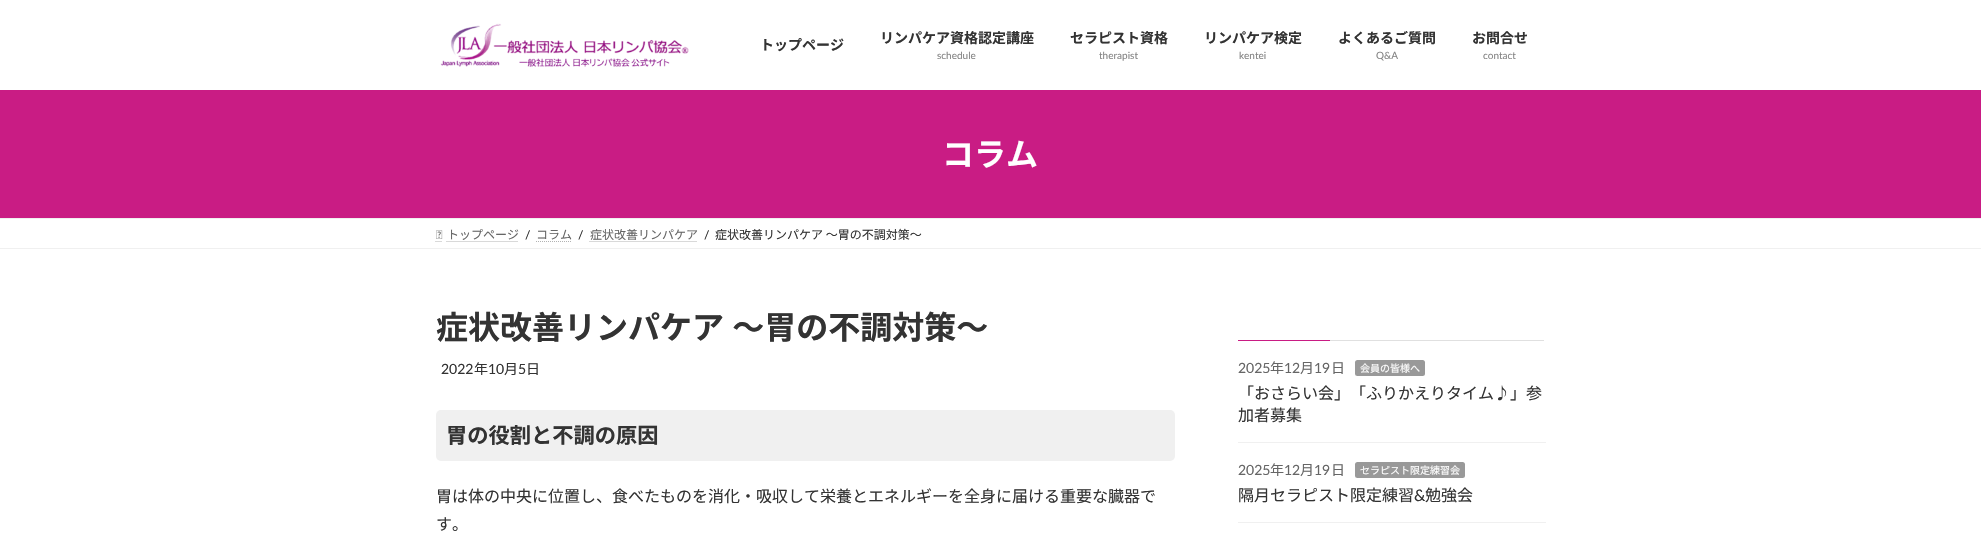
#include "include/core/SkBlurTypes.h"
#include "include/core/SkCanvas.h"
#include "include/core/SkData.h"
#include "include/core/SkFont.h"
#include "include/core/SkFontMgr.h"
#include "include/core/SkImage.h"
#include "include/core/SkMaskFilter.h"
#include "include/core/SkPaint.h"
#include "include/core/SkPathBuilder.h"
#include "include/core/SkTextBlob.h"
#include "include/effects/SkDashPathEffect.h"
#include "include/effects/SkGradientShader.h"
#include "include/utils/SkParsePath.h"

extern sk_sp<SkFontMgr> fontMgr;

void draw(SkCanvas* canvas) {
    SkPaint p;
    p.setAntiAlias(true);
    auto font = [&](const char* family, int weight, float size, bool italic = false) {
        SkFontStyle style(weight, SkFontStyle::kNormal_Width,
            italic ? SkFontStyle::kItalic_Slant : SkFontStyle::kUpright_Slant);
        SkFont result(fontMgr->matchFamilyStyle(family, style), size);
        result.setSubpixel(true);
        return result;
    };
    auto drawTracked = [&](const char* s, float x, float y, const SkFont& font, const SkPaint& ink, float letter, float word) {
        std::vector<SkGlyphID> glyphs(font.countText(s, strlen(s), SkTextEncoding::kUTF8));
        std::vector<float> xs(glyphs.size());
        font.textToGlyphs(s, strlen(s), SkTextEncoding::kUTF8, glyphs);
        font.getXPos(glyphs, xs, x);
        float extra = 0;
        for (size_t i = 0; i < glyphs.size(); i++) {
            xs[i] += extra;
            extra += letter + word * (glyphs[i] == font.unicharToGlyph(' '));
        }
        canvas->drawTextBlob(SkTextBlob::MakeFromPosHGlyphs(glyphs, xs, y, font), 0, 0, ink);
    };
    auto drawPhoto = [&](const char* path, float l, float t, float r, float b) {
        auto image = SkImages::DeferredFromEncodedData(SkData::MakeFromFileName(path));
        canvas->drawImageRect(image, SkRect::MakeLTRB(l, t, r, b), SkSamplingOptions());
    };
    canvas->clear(0xFFFFFFFF);
    drawPhoto("media/1.png", 440, 23, 689, 67);
    auto font1 = font("Noto Sans JP", 700, 14);
    p.setColor(0xFF333333);
    canvas->drawString("トップページ", 760, 50, font1, p);
    canvas->drawString("リンパケア資格認定講座", 880, 43, font1, p);
    auto font2 = font("Lato", 400, 10);
    p.setColor(0xFF858585);
    canvas->drawString("schedule", 937, 59, font2, p);
    p.setColor(0xFF333333);
    canvas->drawString("セラピスト資格", 1070, 43, font1, p);
    p.setColor(0xFF858585);
    canvas->drawString("therapist", 1099, 59, font2, p);
    p.setColor(0xFF333333);
    canvas->drawString("リンパケア検定", 1204, 43, font1, p);
    p.setColor(0xFF858585);
    canvas->drawString("kentei", 1239, 59, font2, p);
    p.setColor(0xFF333333);
    canvas->drawString("よくあるご質問", 1338, 43, font1, p);
    p.setColor(0xFF858585);
    canvas->drawString("Q&A", 1376, 59, font2, p);
    p.setColor(0xFF333333);
    canvas->drawString("お問合せ", 1472, 43, font1, p);
    p.setColor(0xFF858585);
    canvas->drawString("contact", 1483, 59, font2, p);
    p.setColor(0xFFC91C84);
    canvas->drawRect(SkRect::MakeLTRB(0, 90, 1981, 218), p);
    auto font3 = font("Noto Sans JP", 700, 32);
    p.setColor(0xFFFFFFFF);
    canvas->drawString("コラム", 942, 166, font3, p);
    p.setColor(0xFFF0F0F0);
    canvas->drawRect(SkRect::MakeLTRB(0, 218, 1981, 219), p);
    canvas->drawRect(SkRect::MakeLTRB(0, 248, 1981, 249), p);
    drawPhoto("media/2.png", 436, 230, 443, 239);
    auto font4 = font("Noto Sans JP", 400, 12);
    p.setColor(0xFF666666);
    canvas->drawString("トップページ", 447, 239, font4, p);
    p.setStyle(SkPaint::kStroke_Style);
    p.setStrokeWidth(1);
    p.setColor(0xFFB3B3B3);
    canvas->drawPath(SkPathBuilder().moveTo(435.5f, 241.5f).lineTo(436.5f, 241.5f).moveTo(437.5f, 241.5f).lineTo(438.5f, 241.5f).moveTo(439.5f, 241.5f).lineTo(440.5f, 241.5f).moveTo(441.5f, 241.5f).lineTo(442, 241.5f).detach(), p);
    p.setPathEffect(SkDashPathEffect::Make({{1, 1}}, 0));
    canvas->drawPath(SkPathBuilder().moveTo(446.5f, 241.5f).lineTo(518.5f, 241.5f).detach(), p);
    p.setPathEffect(nullptr);
    auto font5 = font("Lato", 400, 12);
    p.setStyle(SkPaint::kFill_Style);
    p.setColor(0xFF333333);
    canvas->drawString("/", 525, 239, font5, p);
    p.setColor(0xFF666666);
    canvas->drawString("コラム", 536, 239, font4, p);
    p.setStyle(SkPaint::kStroke_Style);
    p.setColor(0xFFB3B3B3);
    p.setPathEffect(SkDashPathEffect::Make({{1, 1}}, 0));
    canvas->drawPath(SkPathBuilder().moveTo(536, 241.5f).lineTo(572, 241.5f).detach(), p);
    p.setPathEffect(nullptr);
    p.setStyle(SkPaint::kFill_Style);
    p.setColor(0xFF333333);
    canvas->drawString("/", 578, 239, font5, p);
    p.setColor(0xFF666666);
    canvas->drawString("症状改善リンパケア", 590, 239, font4, p);
    p.setStyle(SkPaint::kStroke_Style);
    p.setColor(0xFFB3B3B3);
    p.setPathEffect(SkDashPathEffect::Make({{1, 1}}, 0));
    canvas->drawPath(SkPathBuilder().moveTo(589.5f, 241.5f).lineTo(697.5f, 241.5f).detach(), p);
    p.setPathEffect(nullptr);
    p.setStyle(SkPaint::kFill_Style);
    p.setColor(0xFF333333);
    canvas->drawString("/", 704, 239, font5, p);
    canvas->drawString("症状改善リンパケア 〜胃の不調対策〜", 715, 239, font4, p);
    drawTracked("症状改善リンパケア 〜胃の不調対策〜", 436, 339, font3, p, 0, 1);
    auto font6 = font("Lato", 400, 14);
    canvas->drawString("2022", 441, 374, font6, p);
    auto font7 = font("Noto Sans JP", 400, 14);
    canvas->drawString("年", 474, 374, font7, p);
    canvas->drawString("10", 488, 374, font6, p);
    canvas->drawString("月", 504, 374, font7, p);
    canvas->drawString("5", 518, 374, font6, p);
    canvas->drawString("日", 526, 374, font7, p);
    p.setColor(0xFFF0F0F0);
    canvas->drawRoundRect(SkRect::MakeLTRB(436, 410, 1175, 461), 5, 5, p);
    auto font8 = font("Noto Sans JP", 700, 21.25f);
    p.setColor(0xFF333333);
    canvas->drawString("胃の役割と不調の原因", 446, 443, font8, p);
    auto font9 = font("Noto Sans JP", 400, 16);
    canvas->drawString("胃は体の中央に位置し、食べたものを消化・吸収して栄養とエネルギーを全身に届ける重要な臓器で", 436, 502, font9, p);
    canvas->drawString("す。", 436, 530, font9, p);
    {
        const struct { float l, t, r, b; SkColor color; } items[] = {
            {1330, 340, 1544, 341, 0xFFE0E0E0},
            {1238, 340, 1330, 341, 0xFFC91C84},
            {1238, 442, 1546, 443, 0xFFF0F0F0},
        };
        for (auto [l, t, r, b, color] : items) {
            p.setColor(color);
            canvas->drawRect(SkRect::MakeLTRB(l, t, r, b), p);
        }
    }
    p.setColor(0xFF666666);
    canvas->drawString("2025", 1238, 373, font6, p);
    canvas->drawString("年", 1270, 373, font7, p);
    canvas->drawString("12", 1284, 373, font6, p);
    canvas->drawString("月", 1300, 373, font7, p);
    canvas->drawString("19", 1314, 373, font6, p);
    canvas->drawString("日", 1331, 373, font7, p);
    p.setColor(0xFF999999);
    canvas->drawRoundRect(SkRect::MakeLTRB(1355, 360, 1425, 376), 2.5f, 2.5f, p);
    auto font10 = font("Noto Sans JP", 400, 10);
    p.setColor(0xFFFFFFFF);
    canvas->drawString("会員の皆様へ", 1360, 372, font10, p);
    p.setColor(0xFF333333);
    canvas->drawString("「おさらい会」「ふりかえりタイム♪」参", 1238, 399, font9, p);
    canvas->drawString("加者募集", 1238, 421, font9, p);
    p.setColor(0xFFF0F0F0);
    canvas->drawRect(SkRect::MakeLTRB(1238, 522, 1546, 523), p);
    p.setColor(0xFF666666);
    canvas->drawString("2025", 1238, 475, font6, p);
    canvas->drawString("年", 1270, 475, font7, p);
    canvas->drawString("12", 1284, 475, font6, p);
    canvas->drawString("月", 1300, 475, font7, p);
    canvas->drawString("19", 1314, 475, font6, p);
    canvas->drawString("日", 1331, 475, font7, p);
    p.setColor(0xFF999999);
    canvas->drawRoundRect(SkRect::MakeLTRB(1355, 462, 1465, 478), 2.5f, 2.5f, p);
    p.setColor(0xFFFFFFFF);
    canvas->drawString("セラピスト限定練習会", 1360, 474, font10, p);
    p.setColor(0xFF333333);
    canvas->drawString("隔月セラピスト限定練習", 1238, 501, font9, p);
    auto font11 = font("Lato", 400, 16);
    canvas->drawString("&", 1414, 501, font11, p);
    canvas->drawString("勉強会", 1425, 501, font9, p);
}
